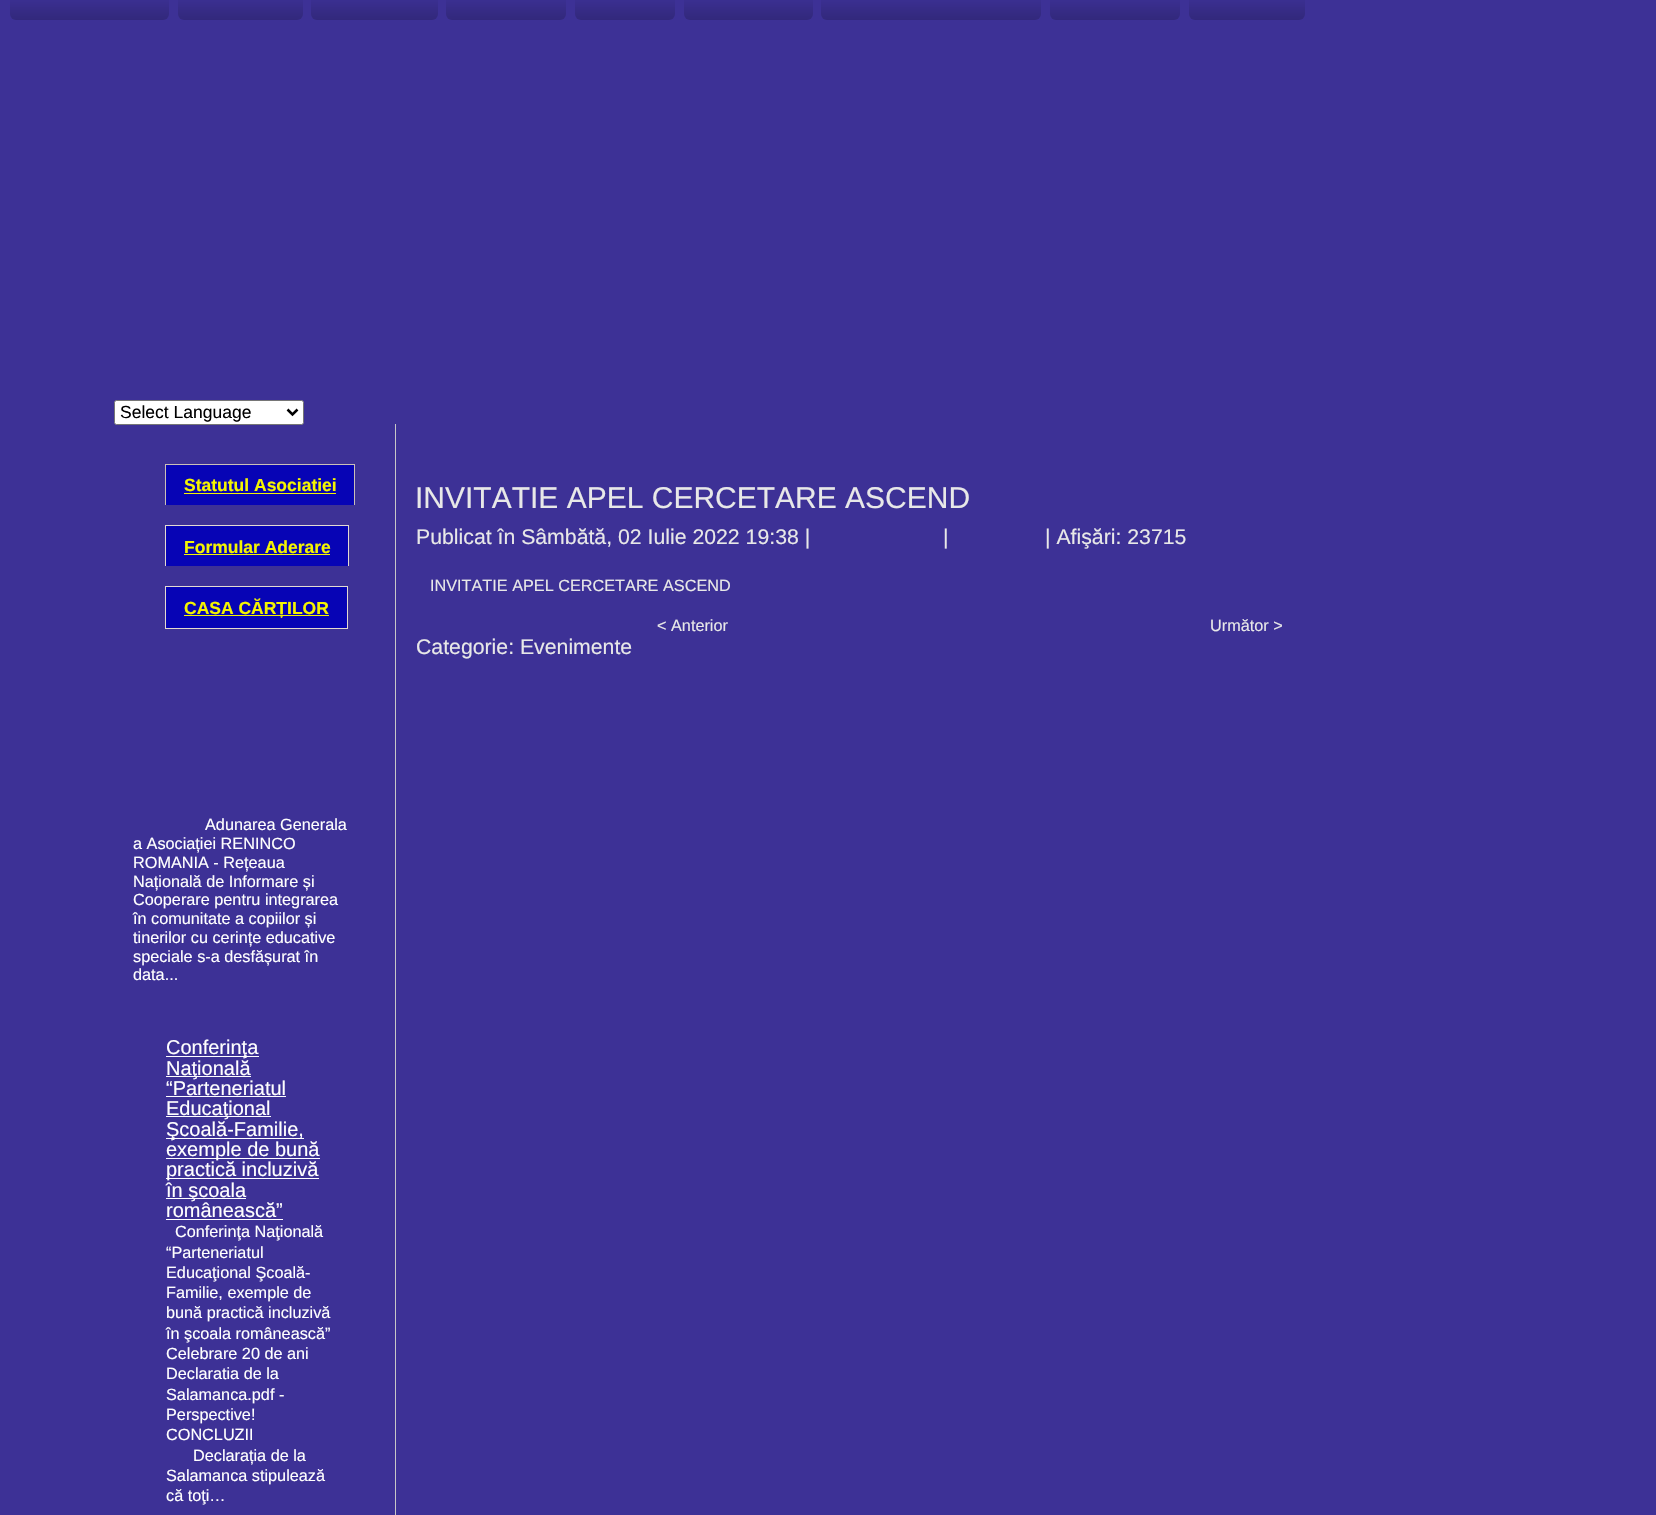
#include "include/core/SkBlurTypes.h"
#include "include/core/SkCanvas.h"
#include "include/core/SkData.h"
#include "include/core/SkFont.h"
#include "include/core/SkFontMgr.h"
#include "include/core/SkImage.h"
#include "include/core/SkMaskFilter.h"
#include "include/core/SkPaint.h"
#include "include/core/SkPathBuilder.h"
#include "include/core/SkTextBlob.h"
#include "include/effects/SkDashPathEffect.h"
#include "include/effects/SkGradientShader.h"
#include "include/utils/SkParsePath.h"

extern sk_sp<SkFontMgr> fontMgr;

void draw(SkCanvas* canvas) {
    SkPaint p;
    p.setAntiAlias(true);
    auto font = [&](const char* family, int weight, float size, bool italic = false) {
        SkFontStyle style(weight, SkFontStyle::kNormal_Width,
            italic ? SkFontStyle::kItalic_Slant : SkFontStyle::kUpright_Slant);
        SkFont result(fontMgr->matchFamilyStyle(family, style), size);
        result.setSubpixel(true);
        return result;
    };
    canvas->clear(0xFF3D3196);
    {
        const SkColor colors[] = {0xFF493BB5, 0xFF32287B};
        const float stops[] = {0, 1};
        const SkPoint ends[] = {{89, -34}, {89, 20}};
        p.setShader(SkGradientShader::MakeLinear(ends, colors, stops, 2, SkTileMode::kClamp));
        p.setAlpha(255);
    }
    canvas->drawRoundRect(SkRect::MakeLTRB(10, -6, 169, 20), 6, 6, p);
    {
        const SkColor colors[] = {0xFF493BB5, 0xFF32287B};
        const float stops[] = {0, 1};
        const SkPoint ends[] = {{240, -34}, {240, 20}};
        p.setShader(SkGradientShader::MakeLinear(ends, colors, stops, 2, SkTileMode::kClamp));
        p.setAlpha(255);
    }
    canvas->drawRoundRect(SkRect::MakeLTRB(178, -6, 303, 20), 6, 6, p);
    {
        const SkColor colors[] = {0xFF493BB5, 0xFF32287B};
        const float stops[] = {0, 1};
        const SkPoint ends[] = {{374, -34}, {374, 20}};
        p.setShader(SkGradientShader::MakeLinear(ends, colors, stops, 2, SkTileMode::kClamp));
        p.setAlpha(255);
    }
    canvas->drawRoundRect(SkRect::MakeLTRB(311, -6, 438, 20), 6, 6, p);
    {
        const SkColor colors[] = {0xFF493BB5, 0xFF32287B};
        const float stops[] = {0, 1};
        const SkPoint ends[] = {{506, -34}, {506, 20}};
        p.setShader(SkGradientShader::MakeLinear(ends, colors, stops, 2, SkTileMode::kClamp));
        p.setAlpha(255);
    }
    canvas->drawRoundRect(SkRect::MakeLTRB(446, -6, 566, 20), 6, 6, p);
    {
        const SkColor colors[] = {0xFF493BB5, 0xFF32287B};
        const float stops[] = {0, 1};
        const SkPoint ends[] = {{625, -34}, {625, 20}};
        p.setShader(SkGradientShader::MakeLinear(ends, colors, stops, 2, SkTileMode::kClamp));
        p.setAlpha(255);
    }
    canvas->drawRoundRect(SkRect::MakeLTRB(575, -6, 675, 20), 6, 6, p);
    {
        const SkColor colors[] = {0xFF493BB5, 0xFF32287B};
        const float stops[] = {0, 1};
        const SkPoint ends[] = {{748, -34}, {748, 20}};
        p.setShader(SkGradientShader::MakeLinear(ends, colors, stops, 2, SkTileMode::kClamp));
        p.setAlpha(255);
    }
    canvas->drawRoundRect(SkRect::MakeLTRB(684, -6, 813, 20), 6, 6, p);
    {
        const SkColor colors[] = {0xFF493BB5, 0xFF32287B};
        const float stops[] = {0, 1};
        const SkPoint ends[] = {{931, -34}, {931, 20}};
        p.setShader(SkGradientShader::MakeLinear(ends, colors, stops, 2, SkTileMode::kClamp));
        p.setAlpha(255);
    }
    canvas->drawRoundRect(SkRect::MakeLTRB(821, -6, 1041, 20), 6, 6, p);
    {
        const SkColor colors[] = {0xFF493BB5, 0xFF32287B};
        const float stops[] = {0, 1};
        const SkPoint ends[] = {{1115, -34}, {1115, 20}};
        p.setShader(SkGradientShader::MakeLinear(ends, colors, stops, 2, SkTileMode::kClamp));
        p.setAlpha(255);
    }
    canvas->drawRoundRect(SkRect::MakeLTRB(1050, -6, 1180, 20), 6, 6, p);
    {
        const SkColor colors[] = {0xFF493BB5, 0xFF32287B};
        const float stops[] = {0, 1};
        const SkPoint ends[] = {{1247, -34}, {1247, 20}};
        p.setShader(SkGradientShader::MakeLinear(ends, colors, stops, 2, SkTileMode::kClamp));
        p.setAlpha(255);
    }
    canvas->drawRoundRect(SkRect::MakeLTRB(1189, -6, 1305, 20), 6, 6, p);
    p.setShader(nullptr);
    p.setColor(0xFFFFFFFF);
    canvas->drawRoundRect(SkRect::MakeLTRB(114.5f, 400.5f, 303.5f, 424.5f), 2, 2, p);
    p.setStyle(SkPaint::kStroke_Style);
    p.setStrokeWidth(1);
    p.setColor(0xFF767676);
    canvas->drawRoundRect(SkRect::MakeLTRB(114.5f, 400.5f, 303.5f, 424.5f), 2, 2, p);
    p.setStrokeWidth(2.5f);
    p.setColor(0xFF000000);
    canvas->drawPath(SkPathBuilder().moveTo(287.5f, 409.5f).lineTo(292.5f, 414.5f).lineTo(297.5f, 409.5f).detach(), p);
    auto font1 = font("Liberation Sans", 400, 17.5f);
    p.setStyle(SkPaint::kFill_Style);
    canvas->drawString("Select Language", 120, 418, font1, p);
    {
        const struct { float l, t, r, b; SkColor color; } items[] = {
            {395, 424, 396, 1515, 0xFFC7C7C7},
            {166, 465, 354, 505, 0xFF0704B5},
            {165, 464, 355, 465, 0xFFCBC0B7},
            {354, 464, 355, 505, 0xFFCBC0B7},
            {165, 464, 166, 505, 0xFFCBC0B7},
        };
        for (auto [l, t, r, b, color] : items) {
            p.setColor(color);
            canvas->drawRect(SkRect::MakeLTRB(l, t, r, b), p);
        }
    }
    auto font2 = font("Liberation Sans", 700, 17.5f);
    p.setColor(0xFFF5F500);
    canvas->drawString("Statutul Asociatiei", 184, 491, font2, p);
    {
        const struct { float l, t, r, b; SkColor color; } items[] = {
            {184, 493, 336, 494, 0xFFF5F500},
            {166, 526, 348, 566, 0xFF0704B5},
            {165, 525, 349, 526, 0xFFE3DAD1},
            {348, 525, 349, 566, 0xFFE3DAD1},
            {165, 525, 166, 566, 0xFFE3DAD1},
        };
        for (auto [l, t, r, b, color] : items) {
            p.setColor(color);
            canvas->drawRect(SkRect::MakeLTRB(l, t, r, b), p);
        }
    }
    p.setColor(0xFFF5F500);
    canvas->drawString("Formular Aderare", 184, 553, font2, p);
    canvas->drawRect(SkRect::MakeLTRB(184, 554, 330, 555), p);
    p.setColor(0xFF0704B5);
    canvas->drawRect(SkRect::MakeLTRB(165.5f, 586.5f, 347.5f, 628.5f), p);
    p.setStyle(SkPaint::kStroke_Style);
    p.setStrokeWidth(1);
    p.setColor(0xFFE3DAD1);
    canvas->drawRect(SkRect::MakeLTRB(165.5f, 586.5f, 347.5f, 628.5f), p);
    p.setStyle(SkPaint::kFill_Style);
    p.setColor(0xFFF5F500);
    canvas->drawRect(SkRect::MakeLTRB(184, 615, 329, 616), p);
    canvas->drawString("CASA CĂRȚILOR", 184, 614, font2, p);
    auto font3 = font("Liberation Sans", 400, 16.25f);
    p.setColor(0xFFFFFFFF);
    {
        const struct { const char* s; float x, y; } items[] = {
            {"Adunarea Generala", 205, 830},
            {"a Asociației RENINCO", 133, 849},
            {"ROMANIA - Rețeaua", 133, 868},
            {"Națională de Informare și", 133, 887},
            {"Cooperare pentru integrarea", 133, 905},
            {"în comunitate a copiilor și", 133, 924},
            {"tinerilor cu cerințe educative", 133, 943},
            {"speciale s-a desfășurat în", 133, 962},
            {"data...", 133, 980},
        };
        for (auto [s, x, y] : items) {
            canvas->drawString(s, x, y, font3, p);
        }
    }
    canvas->drawRect(SkRect::MakeLTRB(166, 1056, 259, 1057), p);
    auto font4 = font("Liberation Sans", 400, 20);
    canvas->drawString("Conferinţa", 166, 1054, font4, p);
    canvas->drawRect(SkRect::MakeLTRB(166, 1076, 251, 1077), p);
    canvas->drawString("Naţională", 166, 1075, font4, p);
    canvas->drawString("“Parteneriatul", 166, 1095, font4, p);
    canvas->drawRect(SkRect::MakeLTRB(166, 1096, 286, 1097), p);
    canvas->drawRect(SkRect::MakeLTRB(166, 1116, 271, 1117), p);
    canvas->drawString("Educaţional", 166, 1115, font4, p);
    canvas->drawRect(SkRect::MakeLTRB(166, 1138, 304, 1139), p);
    canvas->drawString("Şcoală-Familie,", 166, 1136, font4, p);
    canvas->drawRect(SkRect::MakeLTRB(166, 1158, 320, 1159), p);
    canvas->drawString("exemple de bună", 166, 1156, font4, p);
    canvas->drawRect(SkRect::MakeLTRB(166, 1178, 319, 1179), p);
    canvas->drawString("practică incluzivă", 166, 1176, font4, p);
    canvas->drawRect(SkRect::MakeLTRB(166, 1198, 246, 1199), p);
    canvas->drawString("în şcoala", 166, 1197, font4, p);
    canvas->drawString("românească”", 166, 1217, font4, p);
    canvas->drawRect(SkRect::MakeLTRB(166, 1219, 283, 1220), p);
    {
        const struct { const char* s; float x, y; } items[] = {
            {"Conferinţa Naţională", 175, 1237},
            {"“Parteneriatul", 166, 1258},
            {"Educaţional Şcoală-", 166, 1278},
            {"Familie, exemple de", 166, 1298},
            {"bună practică incluzivă", 166, 1318},
            {"în şcoala românească”", 166, 1339},
            {"Celebrare 20 de ani", 166, 1359},
            {"Declaratia de la", 166, 1379},
            {"Salamanca.pdf -", 166, 1400},
            {"Perspective!", 166, 1420},
            {"CONCLUZII", 166, 1440},
            {"Declarația de la", 193, 1461},
            {"Salamanca stipulează", 166, 1481},
            {"că toţi…", 166, 1501},
        };
        for (auto [s, x, y] : items) {
            canvas->drawString(s, x, y, font3, p);
        }
    }
    auto font5 = font("Liberation Sans", 400, 30);
    p.setColor(0xFFE8E8E8);
    canvas->drawString("INVITATIE APEL CERCETARE ASCEND", 415, 508, font5, p);
    auto font6 = font("Liberation Sans", 400, 21.25f);
    {
        const struct { const char* s; float x, y; } items[] = {
            {"Publicat în Sâmbătă, 02 Iulie 2022 19:38 |", 416, 544},
            {"|", 943, 544},
            {"| Afişări: 23715", 1045, 544},
        };
        for (auto [s, x, y] : items) {
            canvas->drawString(s, x, y, font6, p);
        }
    }
    {
        const struct { const char* s; float x, y; } items[] = {
            {"INVITATIE APEL CERCETARE ASCEND", 430, 591},
            {"< Anterior", 657, 631},
            {"Următor >", 1210, 631},
        };
        for (auto [s, x, y] : items) {
            canvas->drawString(s, x, y, font3, p);
        }
    }
    canvas->drawString("Categorie: Evenimente", 416, 654, font6, p);
}
